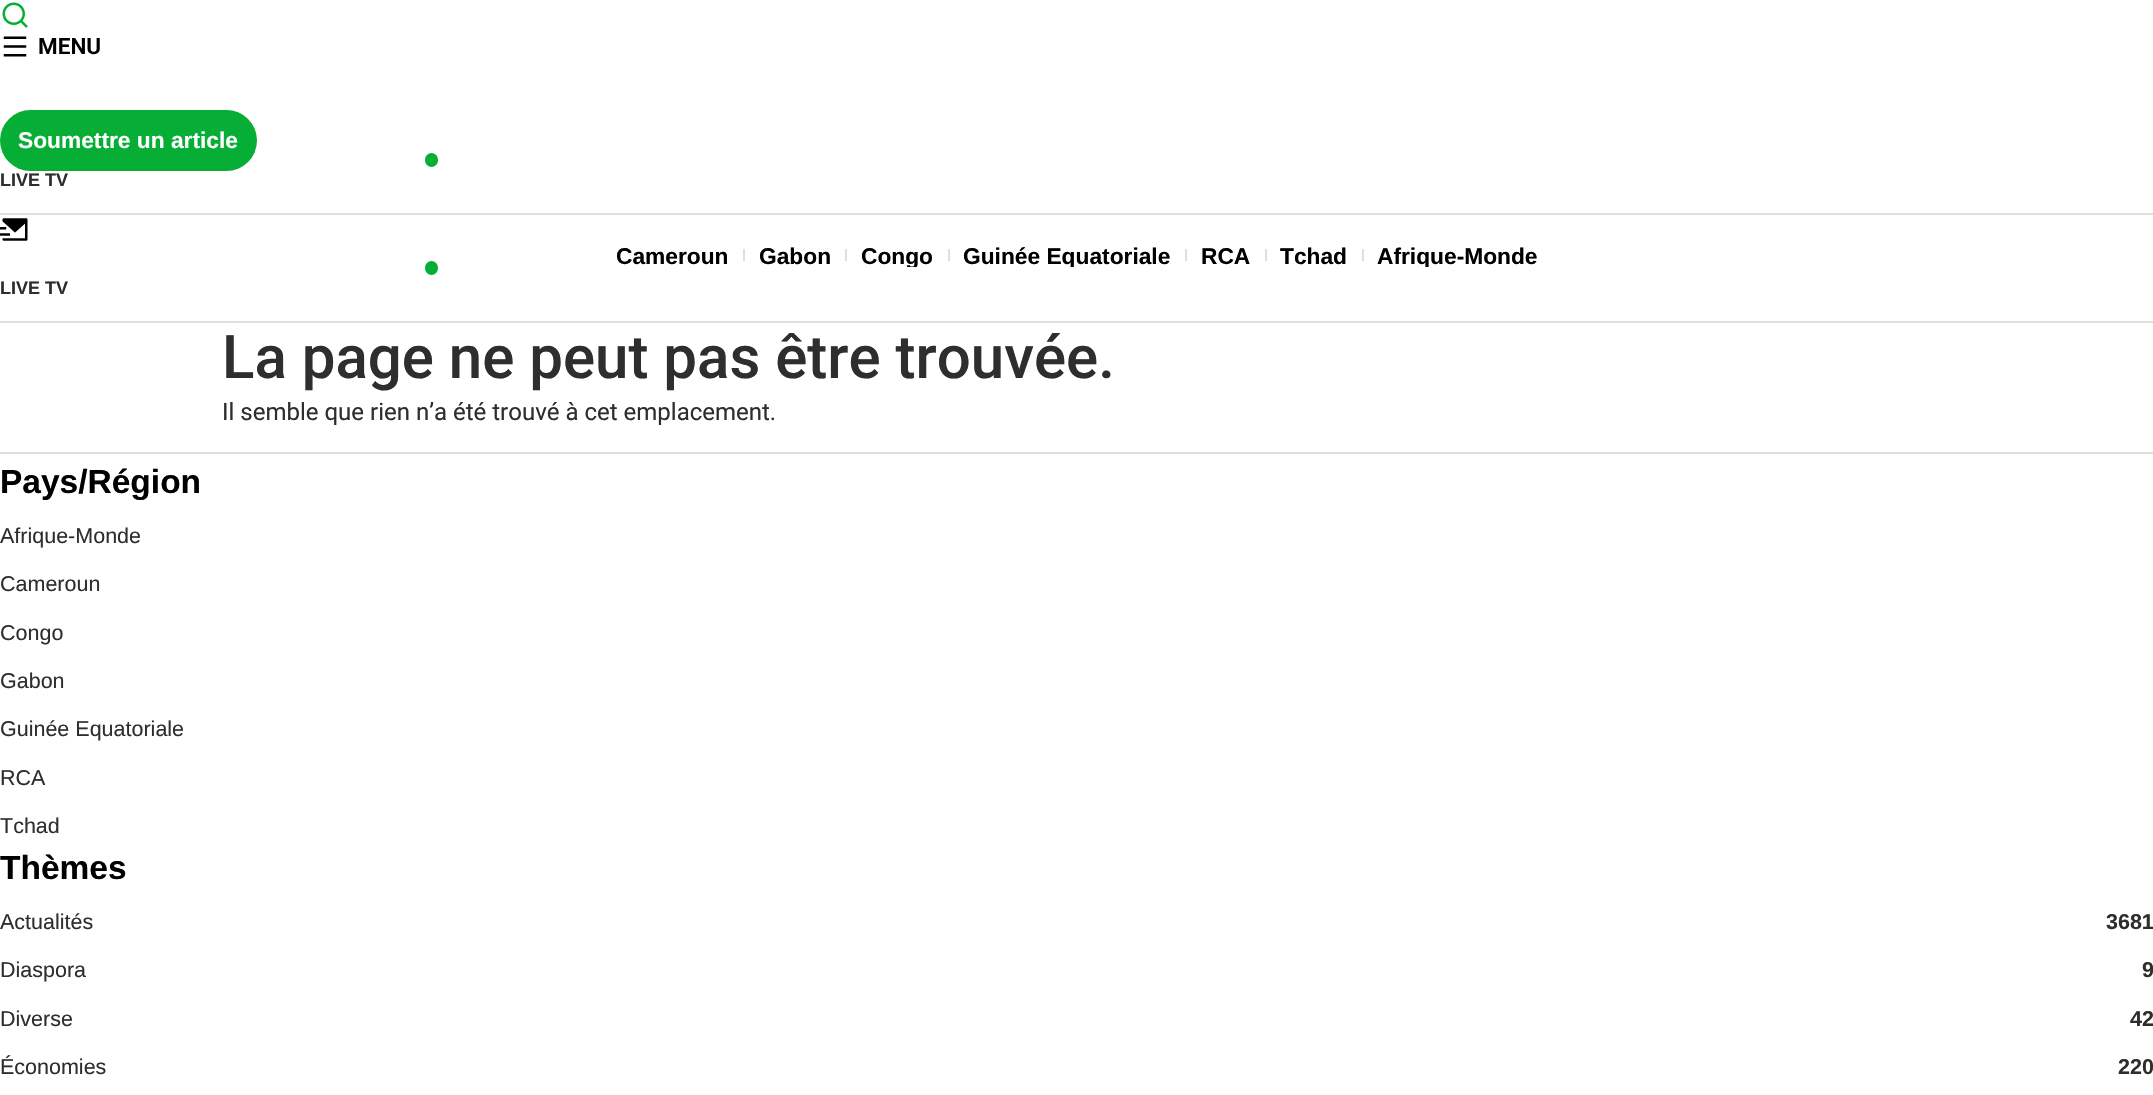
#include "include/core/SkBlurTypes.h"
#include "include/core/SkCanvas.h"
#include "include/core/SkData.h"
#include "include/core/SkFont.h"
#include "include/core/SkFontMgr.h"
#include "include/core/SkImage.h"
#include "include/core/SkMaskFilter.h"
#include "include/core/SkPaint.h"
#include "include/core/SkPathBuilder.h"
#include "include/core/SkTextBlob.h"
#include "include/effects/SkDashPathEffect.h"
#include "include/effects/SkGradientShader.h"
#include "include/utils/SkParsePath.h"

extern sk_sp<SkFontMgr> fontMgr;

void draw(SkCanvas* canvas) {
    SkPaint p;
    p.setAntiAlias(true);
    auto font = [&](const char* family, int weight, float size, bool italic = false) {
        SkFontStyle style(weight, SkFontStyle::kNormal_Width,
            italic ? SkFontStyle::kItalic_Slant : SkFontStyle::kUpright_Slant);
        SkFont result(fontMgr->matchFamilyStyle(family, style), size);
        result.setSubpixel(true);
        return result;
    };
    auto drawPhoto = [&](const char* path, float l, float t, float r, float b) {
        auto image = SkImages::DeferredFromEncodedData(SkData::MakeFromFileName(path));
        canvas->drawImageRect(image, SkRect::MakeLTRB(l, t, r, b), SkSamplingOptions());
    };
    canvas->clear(0xFFFFFFFF);
    p.setColor(0xFFDFDFDF);
    canvas->drawRect(SkRect::MakeLTRB(0, 213, 2153, 215), p);
    drawPhoto("media/1.png", 2, 2, 28, 28);
    drawPhoto("media/2.png", 3, 36, 27, 57);
    auto font1 = font("Roboto", 600, 22.5f);
    p.setColor(0xFF000000);
    canvas->drawString("MENU", 38, 54, font1, p);
    p.setColor(0xFF06AE36);
    canvas->drawRoundRect(SkRect::MakeLTRB(0, 110, 257, 171), 30.5f, 30.5f, p);
    auto font2 = font("Liberation Sans", 700, 22.75f);
    p.setColor(0xFFFFFFFF);
    canvas->drawString("Soumettre un article", 18, 148, font2, p);
    p.setColor(0xFF06AE36);
    canvas->drawRoundRect(SkRect::MakeLTRB(425, 153, 438, 167), 6.5f, 6.5f, p);
    auto font3 = font("Liberation Sans", 700, 18);
    p.setColor(0xFF2E2E2E);
    canvas->drawString("LIVE TV", 0, 186, font3, p);
    p.setColor(0xFFDFDFDF);
    canvas->drawRect(SkRect::MakeLTRB(0, 321, 2153, 323), p);
    drawPhoto("media/3.png", 0, 218, 28, 241);
    p.setColor(0xFF000000);
    canvas->drawString("Cameroun", 616, 264, font2, p);
    p.setColor(0xFFDFDFDF);
    canvas->drawRect(SkRect::MakeLTRB(743, 249, 745, 261), p);
    p.setColor(0xFF000000);
    canvas->drawString("Gabon", 759, 264, font2, p);
    p.setColor(0xFFDFDFDF);
    canvas->drawRect(SkRect::MakeLTRB(845, 249, 847, 261), p);
    canvas->save();
    canvas->clipRect(SkRect::MakeLTRB(0, 245, 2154, 267));
    p.setColor(0xFF000000);
    canvas->drawString("Congo", 861, 264, font2, p);
    canvas->restore();
    p.setColor(0xFFDFDFDF);
    canvas->drawRect(SkRect::MakeLTRB(948, 249, 950, 261), p);
    canvas->save();
    canvas->clipRect(SkRect::MakeLTRB(0, 245, 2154, 267));
    p.setColor(0xFF000000);
    canvas->drawString("Guinée Equatoriale", 963, 264, font2, p);
    canvas->restore();
    p.setColor(0xFFDFDFDF);
    canvas->drawRect(SkRect::MakeLTRB(1185, 249, 1187, 261), p);
    p.setColor(0xFF000000);
    canvas->drawString("RCA", 1201, 264, font2, p);
    p.setColor(0xFFDFDFDF);
    canvas->drawRect(SkRect::MakeLTRB(1265, 249, 1267, 261), p);
    p.setColor(0xFF000000);
    canvas->drawString("Tchad", 1280, 264, font2, p);
    p.setColor(0xFFDFDFDF);
    canvas->drawRect(SkRect::MakeLTRB(1362, 249, 1364, 261), p);
    canvas->save();
    canvas->clipRect(SkRect::MakeLTRB(0, 245, 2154, 267));
    p.setColor(0xFF000000);
    canvas->drawString("Afrique-Monde", 1377, 264, font2, p);
    canvas->restore();
    p.setColor(0xFF06AE36);
    canvas->drawRoundRect(SkRect::MakeLTRB(425, 261, 438, 275), 6.5f, 6.5f, p);
    p.setColor(0xFF2E2E2E);
    canvas->drawString("LIVE TV", 0, 294, font3, p);
    auto font4 = font("Roboto", 500, 60);
    canvas->drawString("La page ne peut pas être trouvée.", 222, 378, font4, p);
    auto font5 = font("Roboto", 400, 24);
    canvas->drawString("Il semble que rien n’a été trouvé à cet emplacement.", 222, 420, font5, p);
    p.setColor(0xFFDFDFDF);
    canvas->drawRect(SkRect::MakeLTRB(0, 452, 2153, 454), p);
    auto font6 = font("Liberation Sans", 700, 33.5f);
    p.setColor(0xFF000000);
    canvas->drawString("Pays/Région", 0, 493, font6, p);
    auto font7 = font("Liberation Sans", 400, 21.5f);
    p.setColor(0xFF2E2E2E);
    {
        const struct { const char* s; float x, y; } items[] = {
            {"Afrique-Monde", 0, 543},
            {"Cameroun", 0, 591},
            {"Congo", 0, 640},
            {"Gabon", 0, 688},
            {"Guinée Equatoriale", 0, 736},
            {"RCA", 0, 785},
            {"Tchad", 0, 833},
        };
        for (auto [s, x, y] : items) {
            canvas->drawString(s, x, y, font7, p);
        }
    }
    p.setColor(0xFF000000);
    canvas->drawString("Thèmes", 0, 879, font6, p);
    p.setColor(0xFF2E2E2E);
    canvas->drawString("Actualités", 0, 929, font7, p);
    auto font8 = font("Liberation Sans", 700, 21.5f);
    canvas->drawString("3681", 2106, 929, font8, p);
    canvas->drawString("Diaspora", 0, 977, font7, p);
    canvas->drawString("9", 2142, 977, font8, p);
    canvas->drawString("Diverse", 0, 1026, font7, p);
    canvas->drawString("42", 2130, 1026, font8, p);
    canvas->drawString("Économies", 0, 1074, font7, p);
    canvas->drawString("220", 2118, 1074, font8, p);
}
